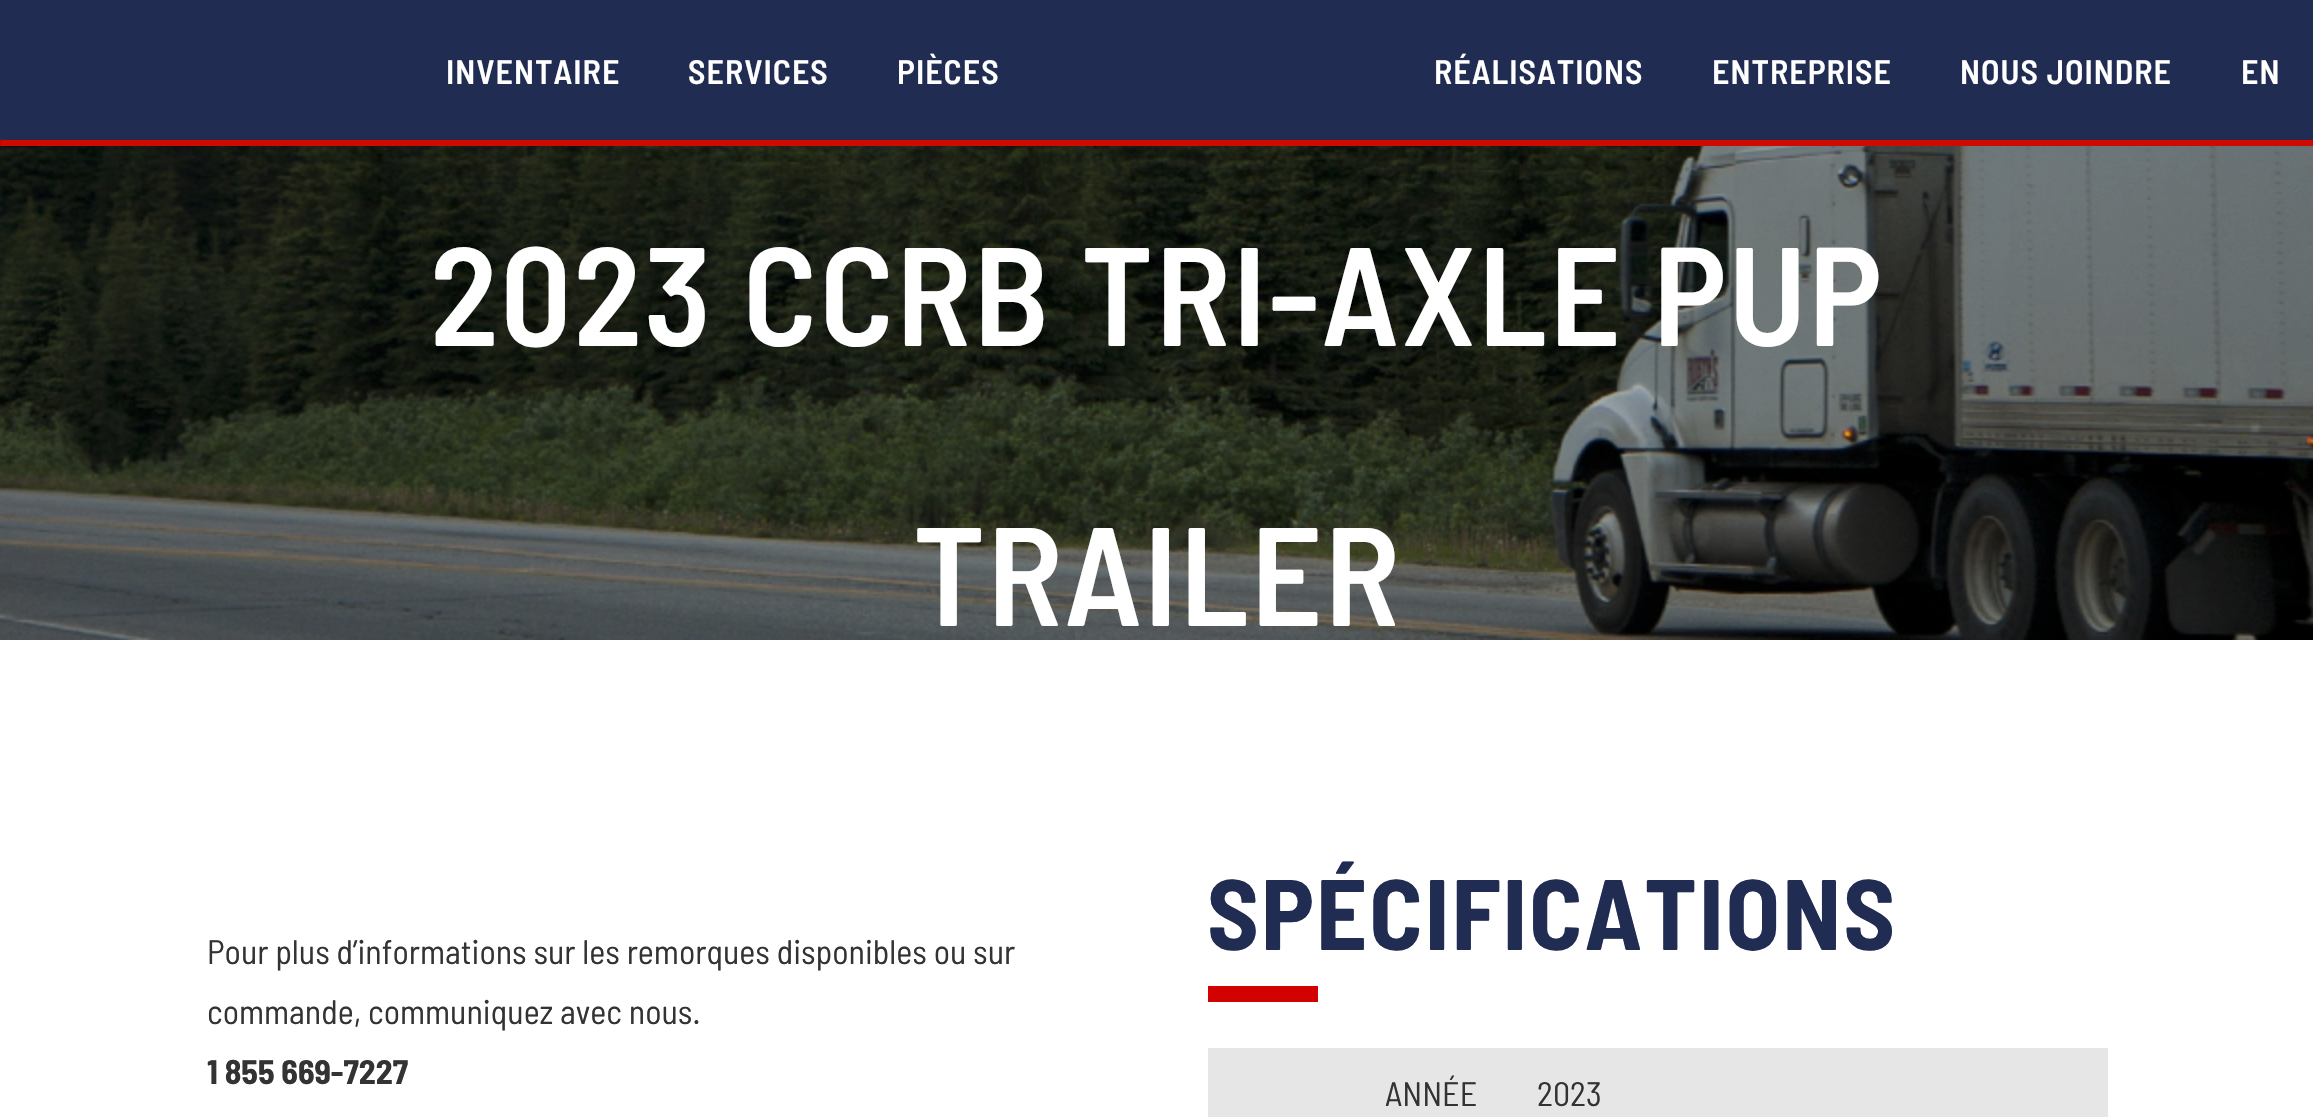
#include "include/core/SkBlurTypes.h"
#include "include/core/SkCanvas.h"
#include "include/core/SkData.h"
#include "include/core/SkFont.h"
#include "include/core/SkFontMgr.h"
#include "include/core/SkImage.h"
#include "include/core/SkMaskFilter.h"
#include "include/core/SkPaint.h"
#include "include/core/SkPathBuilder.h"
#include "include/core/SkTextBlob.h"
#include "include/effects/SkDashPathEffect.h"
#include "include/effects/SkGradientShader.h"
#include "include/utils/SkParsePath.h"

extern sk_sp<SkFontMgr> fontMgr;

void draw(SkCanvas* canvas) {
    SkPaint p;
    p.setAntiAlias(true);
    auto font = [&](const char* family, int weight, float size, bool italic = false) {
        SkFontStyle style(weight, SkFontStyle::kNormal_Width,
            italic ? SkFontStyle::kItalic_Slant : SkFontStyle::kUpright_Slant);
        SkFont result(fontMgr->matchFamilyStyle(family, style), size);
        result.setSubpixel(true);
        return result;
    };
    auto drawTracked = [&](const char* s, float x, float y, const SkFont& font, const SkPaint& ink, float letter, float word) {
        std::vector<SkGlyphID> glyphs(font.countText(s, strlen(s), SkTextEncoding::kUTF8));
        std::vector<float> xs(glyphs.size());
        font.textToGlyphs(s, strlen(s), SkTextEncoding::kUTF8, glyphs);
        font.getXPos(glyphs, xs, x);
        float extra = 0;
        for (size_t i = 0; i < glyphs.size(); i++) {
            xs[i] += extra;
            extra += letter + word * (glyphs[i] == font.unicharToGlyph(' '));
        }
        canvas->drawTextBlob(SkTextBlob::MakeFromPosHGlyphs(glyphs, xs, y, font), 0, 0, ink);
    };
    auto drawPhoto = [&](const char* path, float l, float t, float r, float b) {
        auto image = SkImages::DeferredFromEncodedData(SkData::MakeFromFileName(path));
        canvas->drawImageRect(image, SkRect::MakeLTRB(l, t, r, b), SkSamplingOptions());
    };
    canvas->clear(0xFFFFFFFF);
    p.setColor(0xFF212C52);
    canvas->drawRect(SkRect::MakeLTRB(0, 0, 2313, 140), p);
    p.setColor(0xFFCF0A00);
    canvas->drawRect(SkRect::MakeLTRB(0, 140, 2313, 146), p);
    auto font1 = font("Barlow Semi Condensed", 600, 34);
    p.setColor(0xFFFFFFFF);
    {
        const struct { const char* s; float x, y; } items[] = {
            {"INVENTAIRE", 446, 84},
            {"SERVICES", 688, 84},
            {"PIÈCES", 897, 84},
            {"RÉALISATIONS", 1434, 84},
            {"ENTREPRISE", 1712, 84},
            {"NOUS JOINDRE", 1960, 84},
            {"EN", 2241, 84},
        };
        for (auto [s, x, y] : items) {
            drawTracked(s, x, y, font1, p, 1, 0);
        }
    }
    drawPhoto("media/1.png", 0, 139, 2, 146);
    drawPhoto("media/2.png", 2312, 139, 2313, 146);
    drawPhoto("media/3.png", 0, 146, 2313, 640);
    auto font2 = font("Barlow Semi Condensed", 600, 140);
    drawTracked("2023 CCRB TRI-AXLE PUP", 430, 346, font2, p, 2, 0);
    drawTracked("TRAILER", 913, 626, font2, p, 2, 0);
    auto font3 = font("Barlow Semi Condensed", 400, 34);
    p.setColor(0xFF333333);
    canvas->drawString("Pour plus d’informations sur les remorques disponibles ou sur", 207, 964, font3, p);
    canvas->drawString("commande, communiquez avec nous.", 207, 1024, font3, p);
    auto font4 = font("Barlow Semi Condensed", 700, 34);
    canvas->drawString("1 855 669-7227", 207, 1084, font4, p);
    auto font5 = font("Barlow Semi Condensed", 700, 100);
    p.setColor(0xFF212C52);
    drawTracked("SPÉCIFICATIONS", 1207, 950, font5, p, 2, 0);
    p.setColor(0xFFD10200);
    canvas->drawRect(SkRect::MakeLTRB(1208, 986, 1318, 1002), p);
    p.setColor(0xFFE6E6E6);
    canvas->drawRect(SkRect::MakeLTRB(1208, 1048, 2108, 1117), p);
    p.setColor(0xFF333333);
    canvas->drawString("ANNÉE", 1385, 1106, font3, p);
    canvas->drawString("2023", 1537, 1106, font3, p);
}
